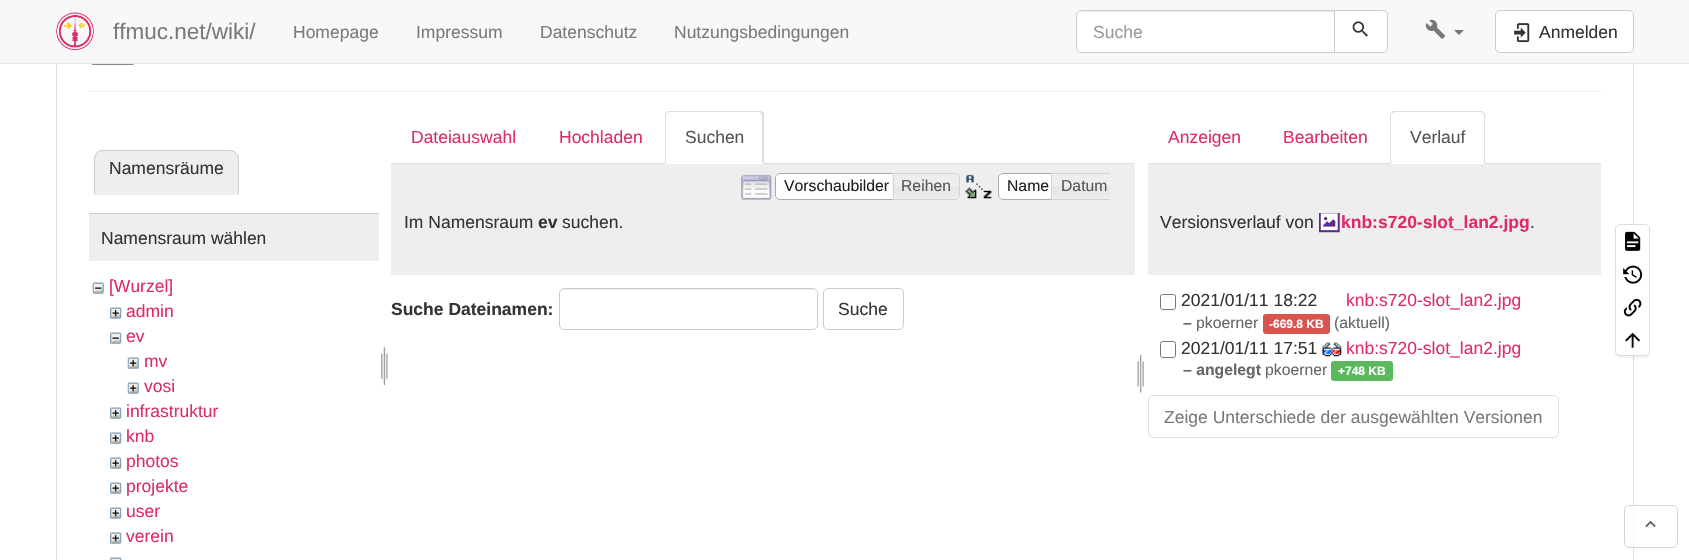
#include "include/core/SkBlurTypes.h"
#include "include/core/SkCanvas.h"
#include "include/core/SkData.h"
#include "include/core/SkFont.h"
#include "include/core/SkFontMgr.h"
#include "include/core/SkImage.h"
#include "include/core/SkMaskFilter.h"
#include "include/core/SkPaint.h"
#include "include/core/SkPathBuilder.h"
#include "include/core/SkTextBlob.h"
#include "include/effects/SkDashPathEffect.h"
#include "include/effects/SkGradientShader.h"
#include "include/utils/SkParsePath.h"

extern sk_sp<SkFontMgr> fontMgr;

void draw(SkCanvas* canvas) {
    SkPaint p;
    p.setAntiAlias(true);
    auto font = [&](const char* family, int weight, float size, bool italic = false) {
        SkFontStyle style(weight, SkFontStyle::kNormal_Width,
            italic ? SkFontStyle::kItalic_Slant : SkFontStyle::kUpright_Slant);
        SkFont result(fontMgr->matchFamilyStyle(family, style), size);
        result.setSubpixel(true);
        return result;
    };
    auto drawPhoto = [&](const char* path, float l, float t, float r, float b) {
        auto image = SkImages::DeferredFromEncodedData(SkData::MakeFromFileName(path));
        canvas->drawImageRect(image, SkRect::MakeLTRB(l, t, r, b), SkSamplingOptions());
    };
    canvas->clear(0xFFFFFFFF);
    p.setStyle(SkPaint::kStroke_Style);
    p.setStrokeWidth(1);
    p.setColor(0xFFDDDDDD);
    canvas->drawRect(SkRect::MakeLTRB(56.5f, -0.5f, 1633.5f, 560.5f), p);
    p.setStyle(SkPaint::kFill_Style);
    p.setColor(0xFFF8F8F8);
    canvas->drawRect(SkRect::MakeLTRB(0, 0, 1689, 63), p);
    p.setColor(0xFFE7E7E7);
    canvas->drawRect(SkRect::MakeLTRB(0, 63, 1689, 64), p);
    drawPhoto("media/1.png", 56, 12, 94, 50);
    auto font1 = font("Liberation Sans", 400, 22.5f);
    p.setColor(0xFF7A7A7A);
    canvas->drawString("ffmuc.net/wiki/", 113, 39, font1, p);
    auto font2 = font("Liberation Sans", 400, 17.5f);
    {
        const struct { const char* s; float x, y; } items[] = {
            {"Homepage", 293, 38},
            {"Impressum", 416, 38},
            {"Datenschutz", 540, 38},
            {"Nutzungsbedingungen", 674, 38},
        };
        for (auto [s, x, y] : items) {
            canvas->drawString(s, x, y, font2, p);
        }
    }
    p.setColor(0xFFFFFFFF);
    canvas->drawPath(SkPathBuilder().moveTo(1081, 10).lineTo(1335, 10).lineTo(1335, 53).lineTo(1081, 53).cubicTo(1078, 53, 1076, 51, 1076, 48).lineTo(1076, 15).cubicTo(1076, 12, 1078, 10, 1081, 10).close().detach(), p);
    p.setColor(0xFFECECEC);
    canvas->drawPath(SkPathBuilder().moveTo(1081, 12).lineTo(1334, 12).lineTo(1334, 11).lineTo(1082, 11).cubicTo(1080, 11, 1078, 13, 1078, 15).lineTo(1078, 16).cubicTo(1078, 14, 1079, 12, 1081, 12).close().detach(), p);
    p.setStyle(SkPaint::kStroke_Style);
    p.setColor(0xFFCCCCCC);
    canvas->drawPath(SkPathBuilder().moveTo(1081, 10.5f).lineTo(1334.5f, 10.5f).lineTo(1334.5f, 52.5f).lineTo(1081, 52.5f).cubicTo(1078.5f, 52.5f, 1076.5f, 50.5f, 1076.5f, 48).lineTo(1076.5f, 15).cubicTo(1076.5f, 12.5f, 1078.5f, 10.5f, 1081, 10.5f).close().detach(), p);
    p.setStyle(SkPaint::kFill_Style);
    p.setColor(0xFF999999);
    canvas->drawString("Suche", 1093, 38, font2, p);
    p.setColor(0xFFFFFFFF);
    canvas->drawPath(SkPathBuilder().moveTo(1334.5f, 10.5f).lineTo(1383, 10.5f).cubicTo(1385.5f, 10.5f, 1387.5f, 12.5f, 1387.5f, 15).lineTo(1387.5f, 48).cubicTo(1387.5f, 50.5f, 1385.5f, 52.5f, 1383, 52.5f).lineTo(1334.5f, 52.5f).close().detach(), p);
    p.setStyle(SkPaint::kStroke_Style);
    p.setColor(0xFFCCCCCC);
    canvas->drawPath(SkPathBuilder().moveTo(1334.5f, 10.5f).lineTo(1383, 10.5f).cubicTo(1385.5f, 10.5f, 1387.5f, 12.5f, 1387.5f, 15).lineTo(1387.5f, 48).cubicTo(1387.5f, 50.5f, 1385.5f, 52.5f, 1383, 52.5f).lineTo(1334.5f, 52.5f).close().detach(), p);
    drawPhoto("media/2.png", 1352, 21, 1368, 37);
    drawPhoto("media/3.png", 1425, 19, 1446, 39);
    p.setStyle(SkPaint::kFill_Style);
    p.setColor(0xFF777777);
    canvas->drawPath(SkPathBuilder().moveTo(1454, 30).lineTo(1464, 30).lineTo(1459, 35).close().detach(), p);
    p.setColor(0xFFFFFFFF);
    canvas->drawRoundRect(SkRect::MakeLTRB(1495.5f, 10.5f, 1633.5f, 52.5f), 4.5f, 4.5f, p);
    p.setStyle(SkPaint::kStroke_Style);
    p.setColor(0xFFCCCCCC);
    canvas->drawRoundRect(SkRect::MakeLTRB(1495.5f, 10.5f, 1633.5f, 52.5f), 4.5f, 4.5f, p);
    drawPhoto("media/4.png", 1514, 23, 1530, 43);
    p.setStyle(SkPaint::kFill_Style);
    p.setColor(0xFF333333);
    canvas->drawString("Anmelden", 1539, 38, font2, p);
    p.setColor(0xFFEEEEEE);
    canvas->drawRect(SkRect::MakeLTRB(89, 91, 1601, 92), p);
    drawPhoto("media/5.png", 91, 64, 134, 65);
    canvas->drawPath(SkPathBuilder().moveTo(103, 150).lineTo(230, 150).cubicTo(235, 150, 239, 154, 239, 159).lineTo(239, 195).lineTo(94, 195).lineTo(94, 159).cubicTo(94, 154, 98, 150, 103, 150).close().detach(), p);
    p.setColor(0xFFCCCCCC);
    canvas->drawPath(SkPathBuilder().moveTo(102, 150).cubicTo(100, 150, 98, 151, 96, 153).lineTo(97, 153).cubicTo(98, 152, 100, 151, 102, 151).lineTo(230, 151).cubicTo(232, 151, 234, 152, 235, 153).lineTo(236, 153).cubicTo(235, 151, 232, 150, 230, 150).close().detach(), p);
    canvas->drawPath(SkPathBuilder().moveTo(239, 157).lineTo(239, 195).lineTo(238, 194).lineTo(238, 159).cubicTo(238, 157, 237, 155, 235, 153).lineTo(236, 153).cubicTo(237, 154, 238, 155, 239, 157).close().detach(), p);
    p.setColor(0xFFEEEEEE);
    canvas->drawPath(SkPathBuilder().moveTo(239, 195).lineTo(238, 194).lineTo(95, 194).lineTo(94, 195).close().detach(), p);
    p.setColor(0xFFCCCCCC);
    canvas->drawPath(SkPathBuilder().moveTo(96, 153).cubicTo(95, 154, 94, 157, 94, 159).lineTo(94, 195).lineTo(95, 194).lineTo(95, 159).cubicTo(95, 157, 96, 155, 97, 153).close().detach(), p);
    p.setColor(0xFF333333);
    canvas->drawString("Namensräume", 109, 174, font2, p);
    p.setColor(0xFFEEEEEE);
    canvas->drawRect(SkRect::MakeLTRB(89, 214, 379, 261), p);
    p.setColor(0xFFCCCCCC);
    canvas->drawRect(SkRect::MakeLTRB(89, 213, 379, 214), p);
    p.setColor(0xFF333333);
    canvas->drawString("Namensraum wählen", 101, 244, font2, p);
    drawPhoto("media/6.png", 92, 282, 104, 294);
    p.setColor(0xFFDE2C68);
    canvas->drawString("[Wurzel]", 109, 292, font2, p);
    drawPhoto("media/7.png", 110, 307, 122, 319);
    canvas->drawString("admin", 126, 317, font2, p);
    drawPhoto("media/8.png", 110, 332, 122, 344);
    canvas->drawString("ev", 126, 342, font2, p);
    drawPhoto("media/9.png", 127, 357, 139, 369);
    canvas->drawString("mv", 144, 367, font2, p);
    drawPhoto("media/9.png", 127, 382, 139, 394);
    canvas->drawString("vosi", 144, 392, font2, p);
    drawPhoto("media/7.png", 110, 407, 122, 419);
    canvas->drawString("infrastruktur", 126, 417, font2, p);
    drawPhoto("media/7.png", 110, 432, 122, 444);
    canvas->drawString("knb", 126, 442, font2, p);
    drawPhoto("media/7.png", 110, 457, 122, 469);
    canvas->drawString("photos", 126, 467, font2, p);
    drawPhoto("media/7.png", 110, 482, 122, 494);
    canvas->drawString("projekte", 126, 492, font2, p);
    drawPhoto("media/7.png", 110, 507, 122, 519);
    canvas->drawString("user", 126, 517, font2, p);
    drawPhoto("media/7.png", 110, 532, 122, 544);
    canvas->drawString("verein", 126, 542, font2, p);
    drawPhoto("media/10.png", 110, 557, 122, 560);
    drawPhoto("media/11.png", 381, 346, 388, 386);
    p.setColor(0xFFDDDDDD);
    canvas->drawRect(SkRect::MakeLTRB(391, 163, 1135, 164), p);
    p.setColor(0xFFDE2C68);
    canvas->drawString("Dateiauswahl", 411, 143, font2, p);
    canvas->drawString("Hochladen", 559, 143, font2, p);
    p.setColor(0xFFFFFFFF);
    canvas->drawPath(SkPathBuilder().moveTo(670, 111).lineTo(759, 111).cubicTo(762, 111, 764, 113, 764, 116).lineTo(764, 164).lineTo(665, 164).lineTo(665, 116).cubicTo(665, 113, 667, 111, 670, 111).close().detach(), p);
    p.setColor(0xFFDDDDDD);
    canvas->drawPath(SkPathBuilder().moveTo(670, 112).lineTo(667, 113).lineTo(666, 113).lineTo(668, 111).lineTo(761, 111).lineTo(763, 112).lineTo(761, 114).cubicTo(761, 113, 760, 112, 759, 112).close().detach(), p);
    canvas->drawPath(SkPathBuilder().moveTo(763, 112).lineTo(764, 114).lineTo(764, 164).lineTo(762, 162).lineTo(762, 116).lineTo(761, 114).close().detach(), p);
    canvas->drawPath(SkPathBuilder().moveTo(665, 164).lineTo(667, 162).lineTo(666, 162).lineTo(666, 116).cubicTo(666, 115, 666, 114, 667, 113).lineTo(666, 113).cubicTo(665, 113, 665, 115, 665, 116).close().detach(), p);
    p.setColor(0xFF555555);
    canvas->drawString("Suchen", 685, 143, font2, p);
    p.setColor(0xFFEEEEEE);
    canvas->drawRect(SkRect::MakeLTRB(391, 164, 1135, 275), p);
    drawPhoto("media/12.png", 741, 174, 772, 200);
    p.setColor(0xFFFFFFFF);
    canvas->drawPath(SkPathBuilder().moveTo(780, 173).lineTo(899, 173).lineTo(899, 200).lineTo(780, 200).cubicTo(777, 200, 775, 198, 775, 195).lineTo(775, 178).cubicTo(775, 175, 777, 173, 780, 173).close().detach(), p);
    drawPhoto("media/13.png", 775, 173, 779, 199);
    p.setStyle(SkPaint::kStroke_Style);
    p.setColor(0xFFAAAAAA);
    canvas->drawPath(SkPathBuilder().moveTo(780, 173.5f).lineTo(898.5f, 173.5f).lineTo(898.5f, 199.5f).lineTo(780, 199.5f).cubicTo(777.5f, 199.5f, 775.5f, 197.5f, 775.5f, 195).lineTo(775.5f, 178).cubicTo(775.5f, 175.5f, 777.5f, 173.5f, 780, 173.5f).close().detach(), p);
    auto font3 = font("Liberation Sans", 400, 15.75f);
    p.setStyle(SkPaint::kFill_Style);
    p.setColor(0xFF212121);
    canvas->drawString("Vorschaubilder", 784, 191, font3, p);
    drawPhoto("media/14.png", 892, 173, 960, 200);
    p.setStyle(SkPaint::kStroke_Style);
    p.setColor(0xFFD3D3D3);
    canvas->drawPath(SkPathBuilder().moveTo(893.5f, 173.5f).lineTo(955, 173.5f).cubicTo(957.5f, 173.5f, 959.5f, 175.5f, 959.5f, 178).lineTo(959.5f, 195).cubicTo(959.5f, 197.5f, 957.5f, 199.5f, 955, 199.5f).lineTo(893.5f, 199.5f).close().detach(), p);
    p.setStyle(SkPaint::kFill_Style);
    p.setColor(0xFF555555);
    canvas->drawString("Reihen", 901, 191, font3, p);
    drawPhoto("media/15.png", 964, 174, 992, 199);
    p.setColor(0xFFFFFFFF);
    canvas->drawPath(SkPathBuilder().moveTo(1003, 173).lineTo(1058, 173).lineTo(1058, 200).lineTo(1003, 200).cubicTo(1000, 200, 998, 198, 998, 195).lineTo(998, 178).cubicTo(998, 175, 1000, 173, 1003, 173).close().detach(), p);
    drawPhoto("media/16.png", 997, 173, 1002, 200);
    p.setStyle(SkPaint::kStroke_Style);
    p.setColor(0xFFAAAAAA);
    canvas->drawPath(SkPathBuilder().moveTo(1003, 173.5f).lineTo(1057.5f, 173.5f).lineTo(1057.5f, 199.5f).lineTo(1003, 199.5f).cubicTo(1000.5f, 199.5f, 998.5f, 197.5f, 998.5f, 195).lineTo(998.5f, 178).cubicTo(998.5f, 175.5f, 1000.5f, 173.5f, 1003, 173.5f).close().detach(), p);
    p.setStyle(SkPaint::kFill_Style);
    p.setColor(0xFF212121);
    canvas->drawString("Name", 1007, 191, font3, p);
    drawPhoto("media/17.png", 1052, 174, 1110, 199);
    canvas->save();
    canvas->clipRect(SkRect::MakeLTRB(731, 173, 1110, 200));
    p.setStyle(SkPaint::kStroke_Style);
    p.setColor(0xFFD3D3D3);
    canvas->drawPath(SkPathBuilder().moveTo(1051.5f, 173.5f).lineTo(1111, 173.5f).cubicTo(1113.5f, 173.5f, 1115.5f, 175.5f, 1115.5f, 178).lineTo(1115.5f, 195).cubicTo(1115.5f, 197.5f, 1113.5f, 199.5f, 1111, 199.5f).lineTo(1051.5f, 199.5f).close().detach(), p);
    canvas->restore();
    p.setStyle(SkPaint::kFill_Style);
    p.setColor(0xFF555555);
    canvas->drawString("Datum", 1061, 191, font3, p);
    p.setColor(0xFF333333);
    canvas->drawString("Im Namensraum", 404, 228, font2, p);
    auto font4 = font("Liberation Sans", 700, 17.5f);
    canvas->drawString("ev", 538, 228, font4, p);
    canvas->drawString("suchen.", 562, 228, font2, p);
    canvas->drawString("Suche Dateinamen:", 391, 315, font4, p);
    p.setColor(0xFFECECEC);
    canvas->drawPath(SkPathBuilder().moveTo(564, 290).lineTo(812, 290).cubicTo(815, 290, 816, 292, 816, 294).lineTo(816, 293).cubicTo(816, 291, 814, 289, 812, 289).lineTo(564, 289).cubicTo(562, 289, 560, 291, 560, 293).lineTo(560, 294).cubicTo(560, 292, 562, 290, 564, 290).close().detach(), p);
    p.setStyle(SkPaint::kStroke_Style);
    p.setColor(0xFFCCCCCC);
    canvas->drawRoundRect(SkRect::MakeLTRB(559.5f, 288.5f, 817.5f, 329.5f), 4.5f, 4.5f, p);
    canvas->drawRoundRect(SkRect::MakeLTRB(823.5f, 288.5f, 903.5f, 329.5f), 4.5f, 4.5f, p);
    p.setStyle(SkPaint::kFill_Style);
    p.setColor(0xFF333333);
    canvas->drawString("Suche", 838, 315, font2, p);
    drawPhoto("media/18.png", 1137, 354, 1144, 393);
    p.setColor(0xFFDDDDDD);
    canvas->drawRect(SkRect::MakeLTRB(1148, 163, 1601, 164), p);
    p.setColor(0xFFDE2C68);
    canvas->drawString("Anzeigen", 1168, 143, font2, p);
    canvas->drawString("Bearbeiten", 1283, 143, font2, p);
    p.setColor(0xFFFFFFFF);
    canvas->drawPath(SkPathBuilder().moveTo(1395, 111).lineTo(1480, 111).cubicTo(1483, 111, 1485, 113, 1485, 116).lineTo(1485, 164).lineTo(1390, 164).lineTo(1390, 116).cubicTo(1390, 113, 1392, 111, 1395, 111).close().detach(), p);
    p.setColor(0xFFDDDDDD);
    canvas->drawPath(SkPathBuilder().moveTo(1395, 112).lineTo(1392, 113).lineTo(1391, 113).lineTo(1393, 111).lineTo(1482, 111).lineTo(1484, 113).lineTo(1483, 113).lineTo(1480, 112).close().detach(), p);
    canvas->drawPath(SkPathBuilder().moveTo(1485, 164).lineTo(1485, 116).cubicTo(1485, 115, 1485, 113, 1484, 113).lineTo(1483, 113).cubicTo(1484, 114, 1484, 115, 1484, 116).lineTo(1484, 162).lineTo(1483, 162).close().detach(), p);
    canvas->drawPath(SkPathBuilder().moveTo(1390, 164).lineTo(1392, 162).lineTo(1391, 162).lineTo(1391, 116).cubicTo(1391, 115, 1391, 114, 1392, 113).lineTo(1391, 113).cubicTo(1390, 113, 1390, 115, 1390, 116).close().detach(), p);
    p.setColor(0xFF555555);
    canvas->drawString("Verlauf", 1410, 143, font2, p);
    p.setColor(0xFFEEEEEE);
    canvas->drawRect(SkRect::MakeLTRB(1148, 164, 1601, 275), p);
    p.setColor(0xFF333333);
    canvas->drawString("Versionsverlauf von", 1160, 228, font2, p);
    drawPhoto("media/19.png", 1319, 213, 1340, 233);
    p.setColor(0xFFDE2C68);
    canvas->drawString("knb:s720-slot_lan2.jpg", 1341, 228, font4, p);
    p.setColor(0xFF333333);
    canvas->drawString(".", 1530, 228, font2, p);
    p.setStyle(SkPaint::kStroke_Style);
    p.setColor(0xFF767676);
    canvas->drawRoundRect(SkRect::MakeLTRB(1160.5f, 294.5f, 1175.5f, 309.5f), 2, 2, p);
    p.setStyle(SkPaint::kFill_Style);
    p.setColor(0xFF333333);
    canvas->drawString("2021/01/11 18:22", 1181, 306, font2, p);
    p.setColor(0xFFDE2C68);
    canvas->drawString("knb:s720-slot_lan2.jpg", 1346, 306, font2, p);
    auto font5 = font("Liberation Sans", 700, 15.75f);
    p.setColor(0xFF666666);
    canvas->drawString("–", 1183, 328, font5, p);
    canvas->drawString("pkoerner", 1196, 328, font3, p);
    p.setColor(0xFFD9534F);
    canvas->drawRoundRect(SkRect::MakeLTRB(1263, 314, 1330, 334), 3, 3, p);
    auto font6 = font("Liberation Sans", 700, 12);
    p.setColor(0xFFFFFFFF);
    canvas->drawString("-669.8 KB", 1269, 328, font6, p);
    p.setColor(0xFF666666);
    canvas->drawString("(aktuell)", 1334, 328, font3, p);
    p.setStyle(SkPaint::kStroke_Style);
    p.setColor(0xFF767676);
    canvas->drawRoundRect(SkRect::MakeLTRB(1160.5f, 341.5f, 1175.5f, 357.5f), 2, 2, p);
    p.setStyle(SkPaint::kFill_Style);
    p.setColor(0xFF333333);
    canvas->drawString("2021/01/11 17:51", 1181, 354, font2, p);
    drawPhoto("media/20.png", 1322, 342, 1342, 357);
    p.setColor(0xFFDE2C68);
    canvas->drawString("knb:s720-slot_lan2.jpg", 1346, 354, font2, p);
    p.setColor(0xFF666666);
    canvas->drawString("– angelegt", 1183, 375, font5, p);
    canvas->drawString("pkoerner", 1265, 375, font3, p);
    p.setColor(0xFF5CB85C);
    canvas->drawRoundRect(SkRect::MakeLTRB(1331, 361, 1393, 381), 3, 3, p);
    p.setColor(0xFFFFFFFF);
    canvas->drawString("+748 KB", 1338, 375, font6, p);
    p.setStyle(SkPaint::kStroke_Style);
    p.setColor(0xFFDEDEDE);
    canvas->drawRoundRect(SkRect::MakeLTRB(1148.5f, 395.5f, 1558.5f, 437.5f), 4.5f, 4.5f, p);
    p.setStyle(SkPaint::kFill_Style);
    p.setColor(0xFF7A7A7A);
    canvas->drawString("Zeige Unterschiede der ausgewählten Versionen", 1164, 423, font2, p);
    p.setColor(0x0D000000);
    p.setMaskFilter(SkMaskFilter::MakeBlur(kNormal_SkBlurStyle, 0.5f));
    canvas->drawRoundRect(SkRect::MakeLTRB(1615, 225, 1650, 358), 5, 5, p);
    p.setMaskFilter(nullptr);
    p.setColor(0xFFFFFFFF);
    canvas->drawRoundRect(SkRect::MakeLTRB(1615.5f, 224.5f, 1649.5f, 355.5f), 4.5f, 4.5f, p);
    p.setStyle(SkPaint::kStroke_Style);
    p.setColor(0xFFDDDDDD);
    canvas->drawRoundRect(SkRect::MakeLTRB(1615.5f, 224.5f, 1649.5f, 355.5f), 4.5f, 4.5f, p);
    drawPhoto("media/21.png", 1625, 231, 1641, 251);
    drawPhoto("media/22.png", 1623, 265, 1643, 284);
    drawPhoto("media/23.png", 1623, 298, 1642, 317);
    drawPhoto("media/24.png", 1625, 332, 1640, 348);
    p.setStyle(SkPaint::kFill_Style);
    p.setColor(0xCCFFFFFF);
    canvas->drawRoundRect(SkRect::MakeLTRB(1624, 505, 1678, 548), 5, 5, p);
    p.setStyle(SkPaint::kStroke_Style);
    p.setColor(0xCCCCCCCC);
    canvas->drawRoundRect(SkRect::MakeLTRB(1624.5f, 505.5f, 1677.5f, 547.5f), 4.5f, 4.5f, p);
    drawPhoto("media/25.png", 1645, 520, 1656, 528);
}
